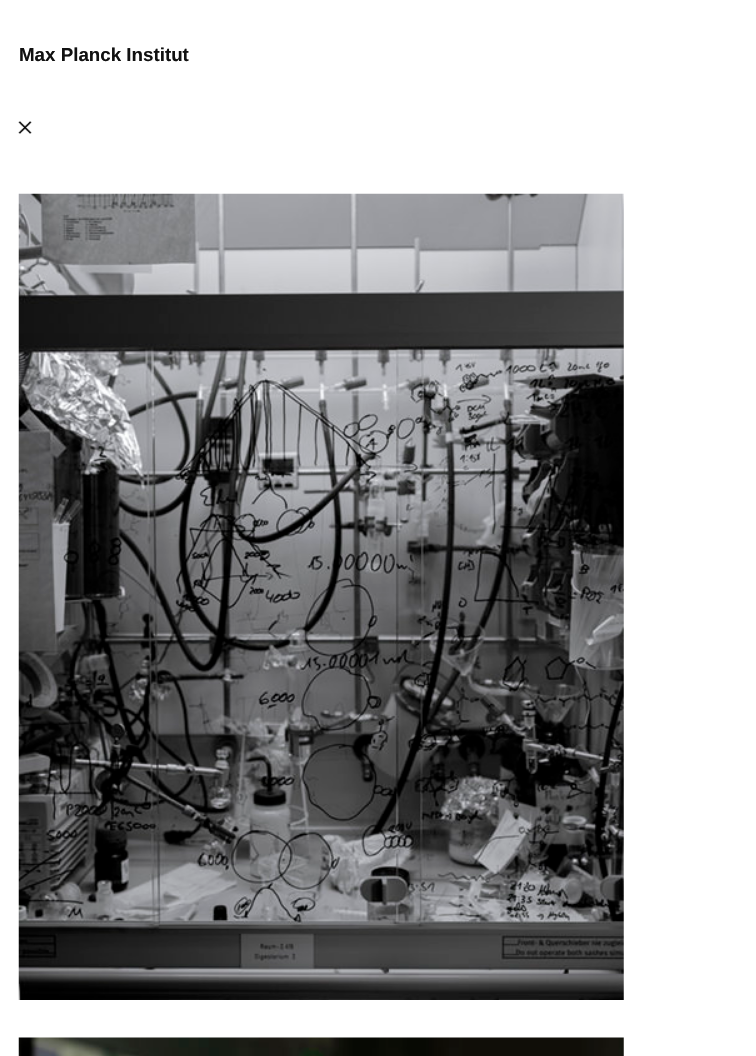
#include "include/core/SkBlurTypes.h"
#include "include/core/SkCanvas.h"
#include "include/core/SkData.h"
#include "include/core/SkFont.h"
#include "include/core/SkFontMgr.h"
#include "include/core/SkImage.h"
#include "include/core/SkMaskFilter.h"
#include "include/core/SkPaint.h"
#include "include/core/SkPathBuilder.h"
#include "include/core/SkTextBlob.h"
#include "include/effects/SkDashPathEffect.h"
#include "include/effects/SkGradientShader.h"
#include "include/utils/SkParsePath.h"

extern sk_sp<SkFontMgr> fontMgr;

void draw(SkCanvas* canvas) {
    SkPaint p;
    p.setAntiAlias(true);
    auto font = [&](const char* family, int weight, float size, bool italic = false) {
        SkFontStyle style(weight, SkFontStyle::kNormal_Width,
            italic ? SkFontStyle::kItalic_Slant : SkFontStyle::kUpright_Slant);
        SkFont result(fontMgr->matchFamilyStyle(family, style), size);
        result.setSubpixel(true);
        return result;
    };
    auto drawPhoto = [&](const char* path, float l, float t, float r, float b) {
        auto image = SkImages::DeferredFromEncodedData(SkData::MakeFromFileName(path));
        canvas->drawImageRect(image, SkRect::MakeLTRB(l, t, r, b), SkSamplingOptions());
    };
    canvas->clear(0xFFFFFFFF);
    auto font1 = font("Liberation Sans", 700, 18.75f);
    p.setColor(0xFF111111);
    canvas->drawString("Max Planck Institut", 19, 61, font1, p);
    drawPhoto("media/1.png", 18, 121, 32, 134);
    drawPhoto("media/2.png", 18, 193, 624, 1000);
    drawPhoto("media/3.png", 18, 1037, 624, 1056);
}
